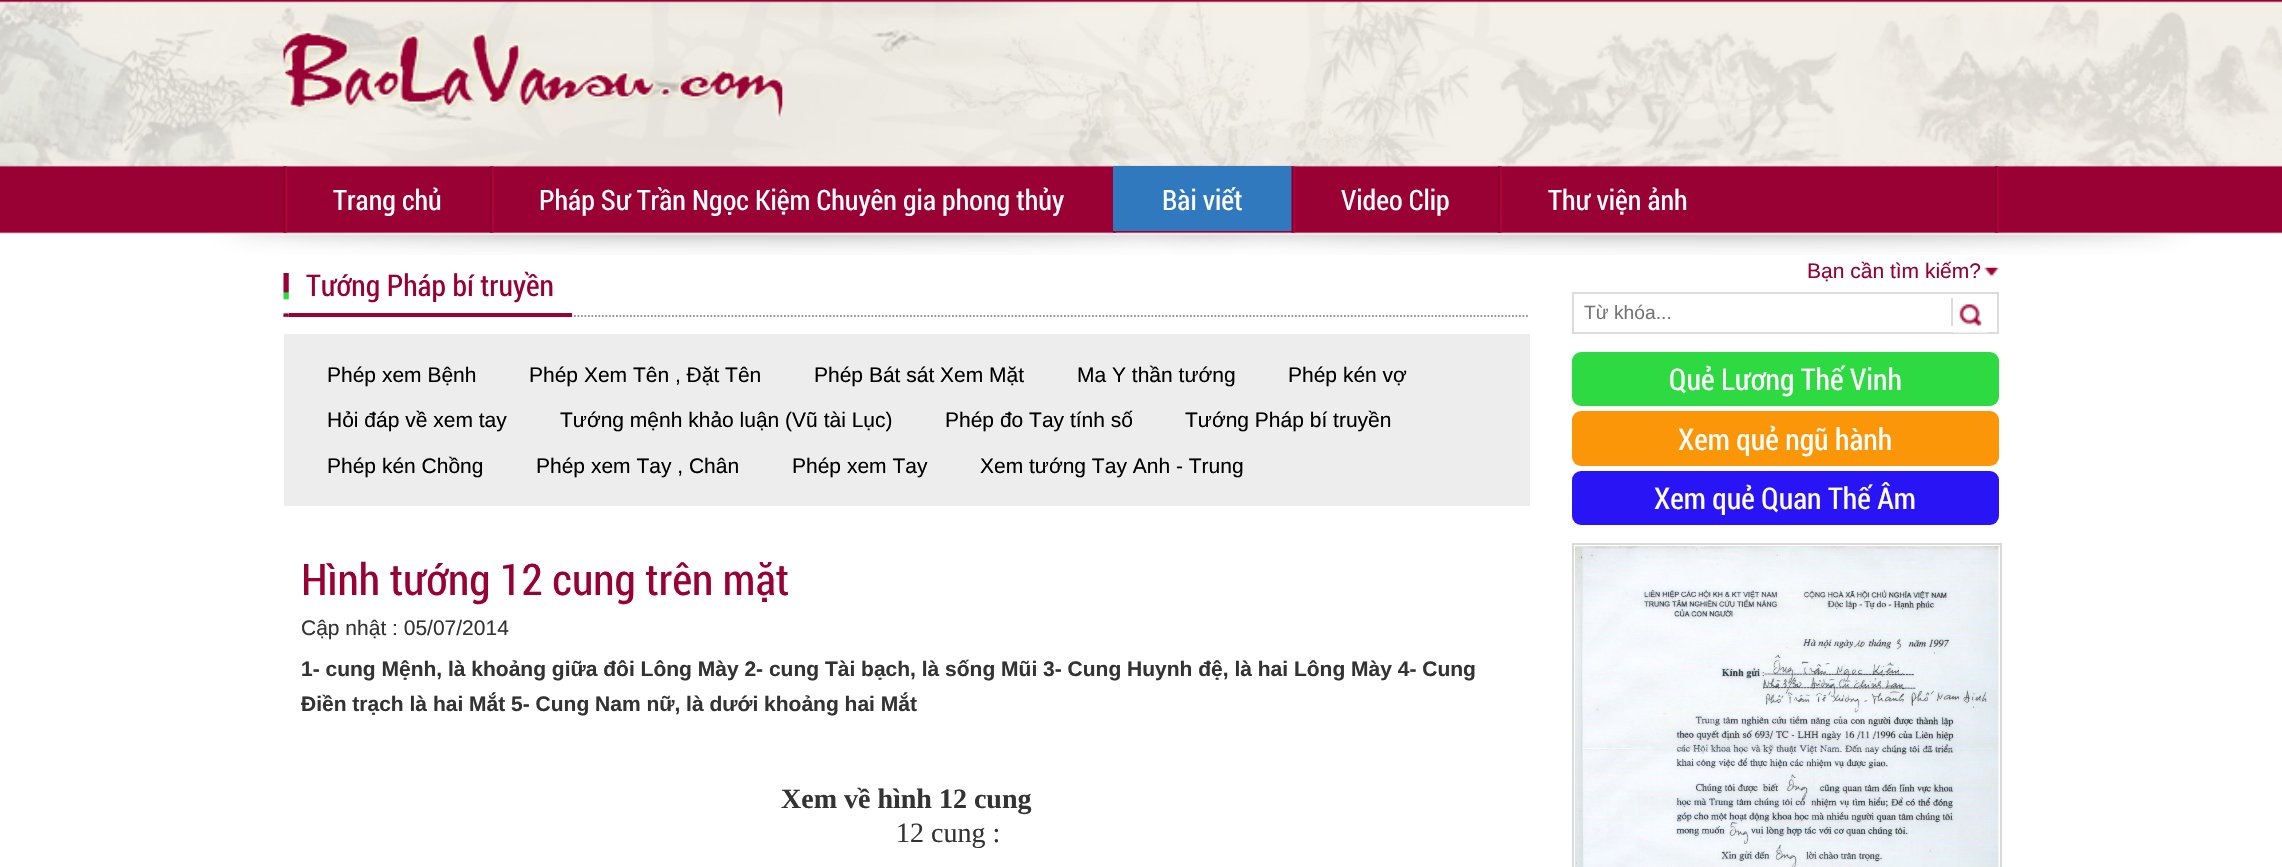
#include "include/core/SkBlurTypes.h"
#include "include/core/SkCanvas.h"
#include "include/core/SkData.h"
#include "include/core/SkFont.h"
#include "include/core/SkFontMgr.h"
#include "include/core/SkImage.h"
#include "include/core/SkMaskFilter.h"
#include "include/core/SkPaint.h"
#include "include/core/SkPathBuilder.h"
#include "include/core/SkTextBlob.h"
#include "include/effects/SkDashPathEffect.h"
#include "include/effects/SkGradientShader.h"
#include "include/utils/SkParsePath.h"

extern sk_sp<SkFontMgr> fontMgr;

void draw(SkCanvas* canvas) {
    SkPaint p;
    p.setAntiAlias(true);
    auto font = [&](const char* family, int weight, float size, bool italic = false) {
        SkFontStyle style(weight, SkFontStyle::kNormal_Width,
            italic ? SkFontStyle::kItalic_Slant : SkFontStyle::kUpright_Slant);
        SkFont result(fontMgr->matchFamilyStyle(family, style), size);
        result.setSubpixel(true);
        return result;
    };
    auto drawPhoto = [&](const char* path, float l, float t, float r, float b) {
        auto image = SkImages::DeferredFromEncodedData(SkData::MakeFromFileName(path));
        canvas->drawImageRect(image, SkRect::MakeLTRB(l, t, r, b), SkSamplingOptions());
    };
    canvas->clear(0xFFFFFFFF);
    drawPhoto("media/1.png", 0, 0, 2282, 255);
    drawPhoto("media/2.png", 283, 28, 783, 121);
    drawPhoto("media/3.png", 1995, 166, 1999, 233);
    drawPhoto("media/4.png", 283, 166, 287, 233);
    auto font1 = font("Roboto Condensed", 400, 28);
    p.setColor(0xFFFFFFFF);
    canvas->drawString("Trang chủ", 333, 210, font1, p);
    drawPhoto("media/5.png", 490, 166, 494, 233);
    canvas->drawString("Pháp Sư Trần Ngọc Kiệm Chuyên gia phong thủy", 539, 210, font1, p);
    drawPhoto("media/6.png", 1113, 231, 1117, 233);
    p.setColor(0xFF3179BF);
    canvas->drawRect(SkRect::MakeLTRB(1113, 166, 1292, 231), p);
    p.setColor(0xFFFFFFFF);
    canvas->drawString("Bài viết", 1162, 210, font1, p);
    drawPhoto("media/7.png", 1291, 166, 1295, 233);
    canvas->drawString("Video Clip", 1341, 210, font1, p);
    drawPhoto("media/8.png", 1498, 166, 1502, 233);
    canvas->drawString("Thư viện ảnh", 1548, 210, font1, p);
    p.setStyle(SkPaint::kStroke_Style);
    p.setStrokeWidth(1.8f);
    p.setColor(0xFF969696);
    p.setPathEffect(SkDashPathEffect::Make({{1.75f, 1.75f}}, 0));
    canvas->drawPath(SkPathBuilder().moveTo(283.5f, 316).lineTo(1529.5f, 316).detach(), p);
    p.setPathEffect(nullptr);
    drawPhoto("media/9.png", 283, 273, 289, 317);
    p.setStyle(SkPaint::kFill_Style);
    p.setColor(0xFF990033);
    canvas->drawRect(SkRect::MakeLTRB(289, 313, 572, 317), p);
    auto font2 = font("Roboto Condensed", 400, 29.75f);
    canvas->drawString("Tướng Pháp bí truyền", 306, 296, font2, p);
    p.setColor(0xFFEDEDED);
    canvas->drawRect(SkRect::MakeLTRB(284, 334, 1530, 506), p);
    auto font3 = font("Liberation Sans", 400, 21);
    p.setColor(0xFF000000);
    {
        const struct { const char* s; float x, y; } items[] = {
            {"Phép xem Bệnh", 327, 382},
            {"Phép Xem Tên , Đặt Tên", 529, 382},
            {"Phép Bát sát Xem Mặt", 814, 382},
            {"Ma Y thần tướng", 1077, 382},
            {"Phép kén vợ", 1288, 382},
            {"Hỏi đáp về xem tay", 327, 427},
            {"Tướng mệnh khảo luận (Vũ tài Lục)", 560, 427},
            {"Phép đo Tay tính số", 945, 427},
            {"Tướng Pháp bí truyền", 1185, 427},
            {"Phép kén Chồng", 327, 473},
            {"Phép xem Tay , Chân", 536, 473},
            {"Phép xem Tay", 792, 473},
            {"Xem tướng Tay Anh - Trung", 980, 473},
        };
        for (auto [s, x, y] : items) {
            canvas->drawString(s, x, y, font3, p);
        }
    }
    auto font4 = font("Roboto Condensed", 400, 43.75f);
    p.setColor(0xFF990033);
    canvas->drawString("Hình tướng 12 cung trên mặt", 301, 595, font4, p);
    p.setColor(0xFF333333);
    canvas->drawString("Cập nhật : 05/07/2014", 301, 635, font3, p);
    auto font5 = font("Liberation Sans", 700, 21);
    canvas->drawString("1- cung Mệnh, là khoảng giữa đôi Lông Mày 2- cung Tài bạch, là sống Mũi 3- Cung Huynh đệ, là hai Lông Mày 4- Cung", 301, 676, font5, p);
    canvas->drawString("Điền trạch là hai Mắt 5- Cung Nam nữ, là dưới khoảng hai Mắt", 301, 711, font5, p);
    auto font6 = font("Liberation Serif", 700, 28);
    canvas->drawString("Xem về hình 12 cung", 781, 808, font6, p);
    auto font7 = font("Liberation Serif", 400, 28);
    canvas->drawString("12 cung :", 896, 842, font7, p);
    drawPhoto("media/10.png", 1984, 267, 1999, 277);
    p.setColor(0xFF990033);
    canvas->drawString("Bạn cần tìm kiếm?", 1807, 278, font3, p);
    p.setStyle(SkPaint::kStroke_Style);
    p.setStrokeWidth(2);
    p.setColor(0xFFDCDCDC);
    canvas->drawRect(SkRect::MakeLTRB(1573, 293, 1998, 333), p);
    p.setStyle(SkPaint::kFill_Style);
    canvas->drawRect(SkRect::MakeLTRB(1951, 298, 1953, 326), p);
    auto font8 = font("Liberation Sans", 400, 19.25f);
    p.setColor(0xFF757575);
    canvas->drawString("Từ khóa...", 1584, 319, font8, p);
    drawPhoto("media/11.png", 1953, 304, 1988, 333);
    p.setColor(0xFF2DDA42);
    canvas->drawRoundRect(SkRect::MakeLTRB(1572, 352, 1999, 406), 9, 9, p);
    p.setColor(0xFFFFFFFF);
    canvas->drawString("Quẻ Lương Thế Vinh", 1669, 390, font2, p);
    p.setColor(0xFFFB9608);
    canvas->drawRoundRect(SkRect::MakeLTRB(1572, 411, 1999, 466), 9, 9, p);
    p.setColor(0xFFFFFFFF);
    canvas->drawString("Xem quẻ ngũ hành", 1678, 450, font2, p);
    p.setColor(0xFF2914F5);
    canvas->drawRoundRect(SkRect::MakeLTRB(1572, 471, 1999, 525), 9, 9, p);
    p.setColor(0xFFFFFFFF);
    canvas->drawString("Xem quẻ Quan Thế Âm", 1654, 509, font2, p);
    p.setStyle(SkPaint::kStroke_Style);
    p.setColor(0xFFDADADA);
    canvas->drawRect(SkRect::MakeLTRB(1573, 544, 2001, 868), p);
    drawPhoto("media/12.png", 1575, 546, 1999, 867);
}
